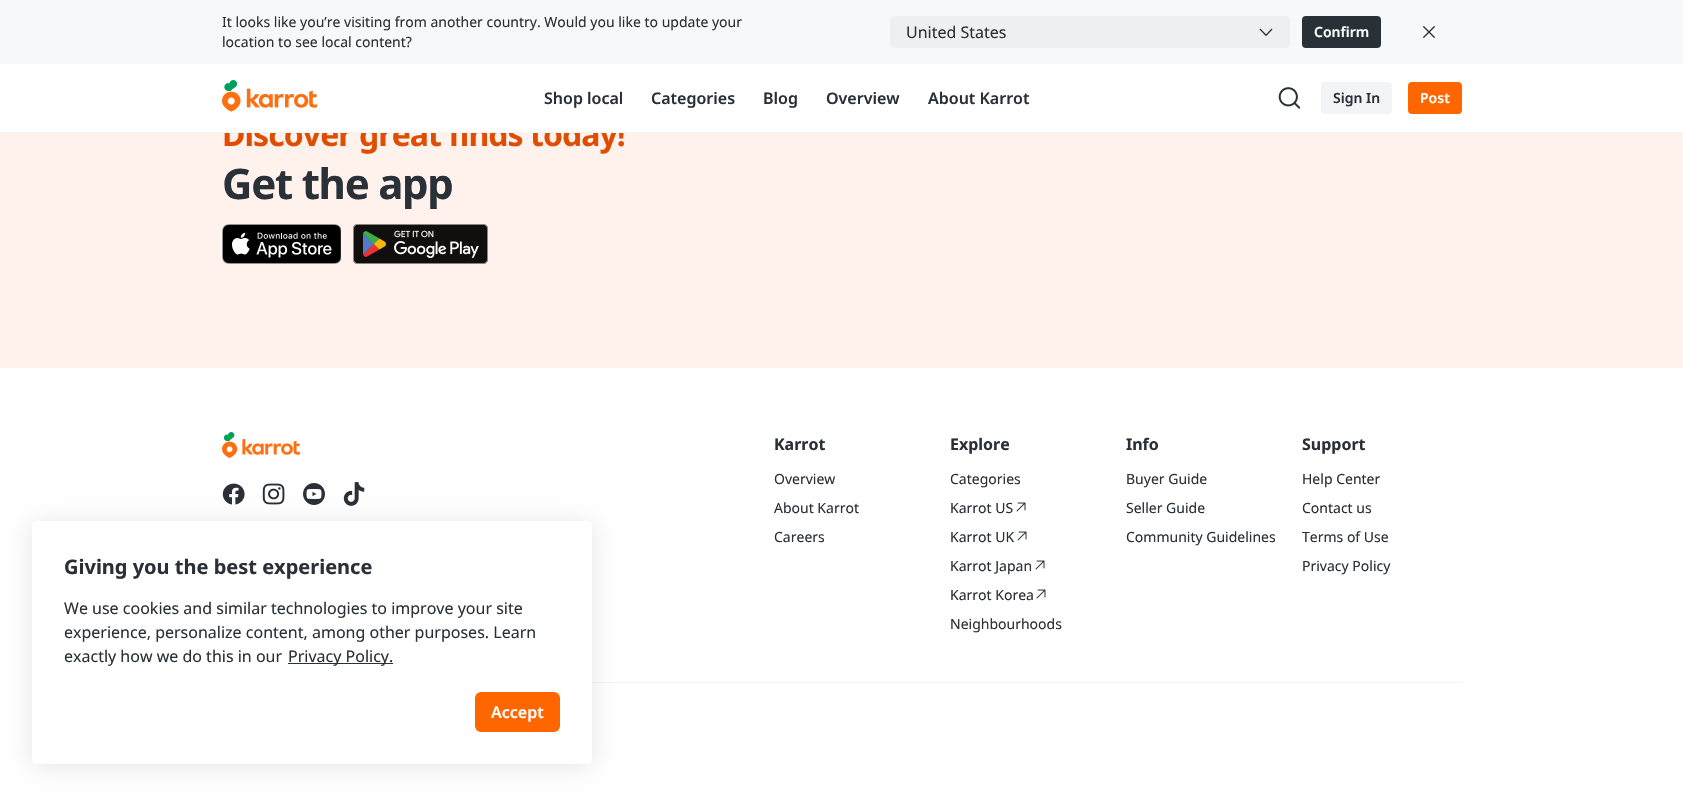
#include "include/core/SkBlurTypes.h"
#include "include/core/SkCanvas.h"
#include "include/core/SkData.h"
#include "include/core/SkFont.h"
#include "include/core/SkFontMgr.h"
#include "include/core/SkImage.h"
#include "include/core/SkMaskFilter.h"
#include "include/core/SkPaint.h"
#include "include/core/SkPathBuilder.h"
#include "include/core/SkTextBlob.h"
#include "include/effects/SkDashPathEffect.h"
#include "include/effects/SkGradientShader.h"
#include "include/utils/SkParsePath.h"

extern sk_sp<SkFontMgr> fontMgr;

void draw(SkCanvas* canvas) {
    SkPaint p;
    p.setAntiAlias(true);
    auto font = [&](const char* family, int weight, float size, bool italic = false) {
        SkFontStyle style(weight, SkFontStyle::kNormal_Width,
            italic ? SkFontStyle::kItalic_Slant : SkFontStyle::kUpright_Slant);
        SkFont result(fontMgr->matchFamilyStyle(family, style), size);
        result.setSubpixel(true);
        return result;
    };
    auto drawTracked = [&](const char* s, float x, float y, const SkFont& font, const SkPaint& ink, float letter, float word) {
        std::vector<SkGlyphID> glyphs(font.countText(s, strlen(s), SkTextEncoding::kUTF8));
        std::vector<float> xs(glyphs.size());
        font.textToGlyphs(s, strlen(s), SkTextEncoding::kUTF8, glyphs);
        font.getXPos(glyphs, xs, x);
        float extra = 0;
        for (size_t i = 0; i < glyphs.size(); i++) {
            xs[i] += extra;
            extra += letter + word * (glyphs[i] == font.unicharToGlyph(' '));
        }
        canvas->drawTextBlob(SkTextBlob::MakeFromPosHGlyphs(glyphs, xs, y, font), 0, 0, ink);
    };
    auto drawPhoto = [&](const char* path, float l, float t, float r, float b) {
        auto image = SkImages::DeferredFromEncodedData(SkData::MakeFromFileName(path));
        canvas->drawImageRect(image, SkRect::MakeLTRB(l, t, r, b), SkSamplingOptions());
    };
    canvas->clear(0xFFFFFFFF);
    p.setColor(0xFFF7F8F9);
    canvas->drawRect(SkRect::MakeLTRB(0, 0, 1683, 64), p);
    auto font1 = font("Noto Sans", 400, 14);
    p.setColor(0xFF2A3038);
    canvas->drawString("It looks like you’re visiting from another country. Would you like to update your", 222, 27, font1, p);
    canvas->drawString("location to see local content?", 222, 47, font1, p);
    p.setColor(0xFFEEEFF1);
    canvas->drawRoundRect(SkRect::MakeLTRB(890, 16, 1290, 48), 4, 4, p);
    auto font2 = font("Noto Sans", 400, 16);
    p.setColor(0xFF2A3038);
    canvas->drawString("United States", 906, 38, font2, p);
    drawPhoto("media/1.png", 1259, 28, 1273, 36);
    canvas->drawRoundRect(SkRect::MakeLTRB(1302, 16, 1381, 48), 4, 4, p);
    auto font3 = font("Noto Sans", 600, 14);
    p.setColor(0xFFFFFFFF);
    canvas->drawString("Confirm", 1314, 37, font3, p);
    drawPhoto("media/2.png", 1423, 26, 1435, 38);
    p.setColor(0xFFFFF2EC);
    canvas->drawRect(SkRect::MakeLTRB(0, 133, 1683, 368), p);
    auto font4 = font("Noto Sans", 700, 32);
    p.setColor(0xFFE14D00);
    drawTracked("Discover great finds today!", 222, 146, font4, p, -0.95f, 0);
    p.setColor(0xFFFFFFFF);
    canvas->drawRect(SkRect::MakeLTRB(224, 121, 624, 132), p);
    p.setColor(0xFFF3F4F5);
    canvas->drawRect(SkRect::MakeLTRB(0, 132, 1683, 133), p);
    drawPhoto("media/3.png", 222, 80, 317, 112);
    auto font5 = font("Noto Sans", 600, 16);
    p.setColor(0xFF2A3038);
    {
        const struct { const char* s; float x, y; } items[] = {
            {"Shop local", 544, 104},
            {"Categories", 651, 104},
            {"Blog", 763, 104},
            {"Overview", 826, 104},
            {"About Karrot", 928, 104},
        };
        for (auto [s, x, y] : items) {
            canvas->drawString(s, x, y, font5, p);
        }
    }
    drawPhoto("media/4.png", 1278, 87, 1301, 109);
    p.setColor(0xFFF3F4F5);
    canvas->drawRoundRect(SkRect::MakeLTRB(1321, 82, 1392, 114), 4, 4, p);
    p.setColor(0xFF2A3038);
    canvas->drawString("Sign In", 1333, 103, font3, p);
    p.setColor(0xFFFF6600);
    canvas->drawRoundRect(SkRect::MakeLTRB(1408, 82, 1462, 114), 4, 4, p);
    p.setColor(0xFFFFFFFF);
    canvas->drawString("Post", 1420, 103, font3, p);
    auto font6 = font("Noto Sans", 700, 42);
    p.setColor(0xFF2A3038);
    drawTracked("Get the app", 222, 199, font6, p, -1.25f, 0);
    drawPhoto("media/5.png", 222, 224, 341, 264);
    drawPhoto("media/6.png", 353, 224, 488, 264);
    drawPhoto("media/8.png", 222, 483, 245, 505);
    drawPhoto("media/9.png", 262, 483, 285, 505);
    drawPhoto("media/10.png", 303, 483, 325, 505);
    drawPhoto("media/11.png", 343, 482, 365, 506);
    p.setColor(0xFFF3F4F5);
    canvas->drawRect(SkRect::MakeLTRB(592, 682, 1462, 683), p);
    p.setColor(0x1A000000);
    p.setMaskFilter(SkMaskFilter::MakeBlur(kNormal_SkBlurStyle, 12));
    canvas->drawRoundRect(SkRect::MakeLTRB(32, 523, 592, 766), 4, 4, p);
    p.setMaskFilter(nullptr);
    p.setColor(0xFFFFFFFF);
    canvas->drawRoundRect(SkRect::MakeLTRB(32, 521, 592, 764), 4, 4, p);
    auto font7 = font("Noto Sans", 700, 20);
    p.setColor(0xFF2A3038);
    canvas->drawString("Giving you the best experience", 64, 574, font7, p);
    {
        const struct { const char* s; float x, y; } items[] = {
            {"We use cookies and similar technologies to improve your site", 64, 614},
            {"experience, personalize content, among other purposes. Learn", 64, 638},
            {"exactly how we do this in our", 64, 662},
        };
        for (auto [s, x, y] : items) {
            canvas->drawString(s, x, y, font2, p);
        }
    }
    canvas->drawRect(SkRect::MakeLTRB(288, 663, 393, 664), p);
    canvas->drawString("Privacy Policy.", 288, 662, font2, p);
    p.setColor(0xFFFF6600);
    canvas->drawRoundRect(SkRect::MakeLTRB(475, 692, 560, 732), 6, 6, p);
    p.setColor(0xFFFFFFFF);
    canvas->drawString("Accept", 491, 718, font5, p);
    drawPhoto("media/7.png", 222, 432, 300, 458);
    auto font8 = font("Noto Sans", 700, 16);
    p.setColor(0xFF2A3038);
    canvas->drawString("Karrot", 774, 450, font8, p);
    {
        const struct { const char* s; float x, y; } items[] = {
            {"Overview", 774, 484},
            {"About Karrot", 774, 513},
            {"Careers", 774, 542},
        };
        for (auto [s, x, y] : items) {
            canvas->drawString(s, x, y, font1, p);
        }
    }
    canvas->drawString("Explore", 950, 450, font8, p);
    canvas->drawString("Categories", 950, 484, font1, p);
    canvas->drawString("Karrot US", 950, 513, font1, p);
    drawPhoto("media/12.png", 1016, 502, 1026, 512);
    canvas->drawString("Karrot UK", 950, 542, font1, p);
    drawPhoto("media/12.png", 1017, 531, 1027, 541);
    canvas->drawString("Karrot Japan", 950, 571, font1, p);
    drawPhoto("media/12.png", 1035, 560, 1045, 570);
    canvas->drawString("Karrot Korea", 950, 600, font1, p);
    drawPhoto("media/12.png", 1036, 589, 1046, 599);
    canvas->drawString("Neighbourhoods", 950, 629, font1, p);
    canvas->drawString("Info", 1126, 450, font8, p);
    {
        const struct { const char* s; float x, y; } items[] = {
            {"Buyer Guide", 1126, 484},
            {"Seller Guide", 1126, 513},
            {"Community Guidelines", 1126, 542},
        };
        for (auto [s, x, y] : items) {
            canvas->drawString(s, x, y, font1, p);
        }
    }
    canvas->drawString("Support", 1302, 450, font8, p);
    {
        const struct { const char* s; float x, y; } items[] = {
            {"Help Center", 1302, 484},
            {"Contact us", 1302, 513},
            {"Terms of Use", 1302, 542},
            {"Privacy Policy", 1302, 571},
        };
        for (auto [s, x, y] : items) {
            canvas->drawString(s, x, y, font1, p);
        }
    }
}
